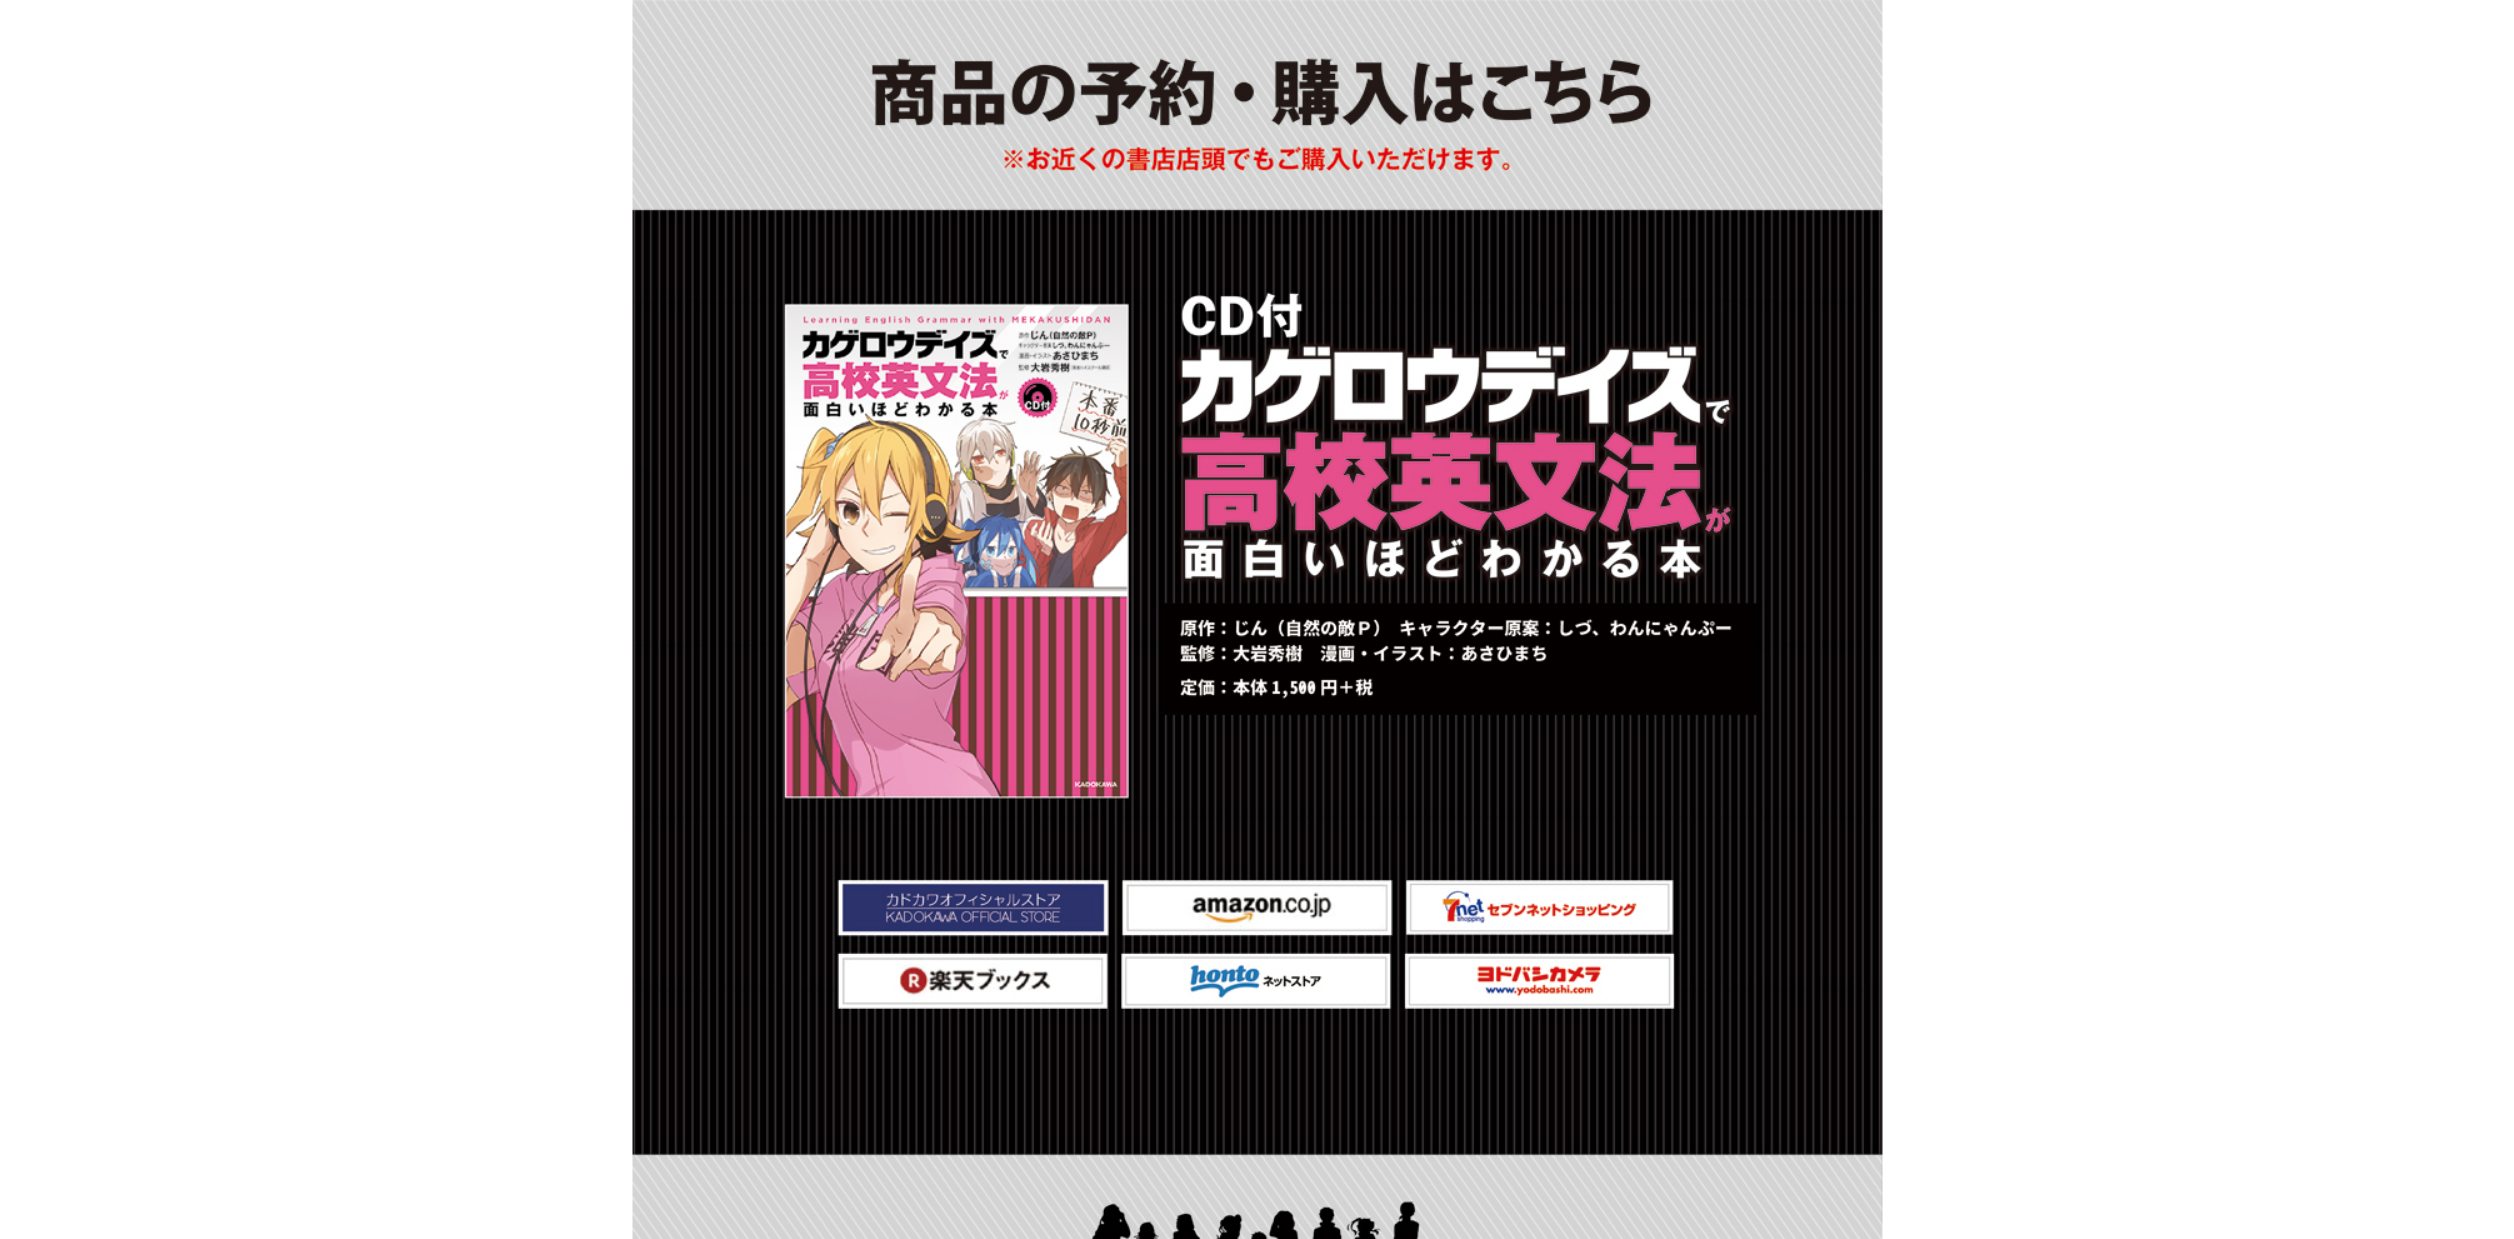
#include "include/core/SkBlurTypes.h"
#include "include/core/SkCanvas.h"
#include "include/core/SkData.h"
#include "include/core/SkFont.h"
#include "include/core/SkFontMgr.h"
#include "include/core/SkImage.h"
#include "include/core/SkMaskFilter.h"
#include "include/core/SkPaint.h"
#include "include/core/SkPathBuilder.h"
#include "include/core/SkTextBlob.h"
#include "include/effects/SkDashPathEffect.h"
#include "include/effects/SkGradientShader.h"
#include "include/utils/SkParsePath.h"

extern sk_sp<SkFontMgr> fontMgr;

void draw(SkCanvas* canvas) {
    SkPaint p;
    p.setAntiAlias(true);
    auto drawPhoto = [&](const char* path, float l, float t, float r, float b) {
        auto image = SkImages::DeferredFromEncodedData(SkData::MakeFromFileName(path));
        canvas->drawImageRect(image, SkRect::MakeLTRB(l, t, r, b), SkSamplingOptions());
    };
    canvas->clear(0xFFFFFFFF);
    drawPhoto("media/1.png", 632, 0, 1883, 1239);
}
